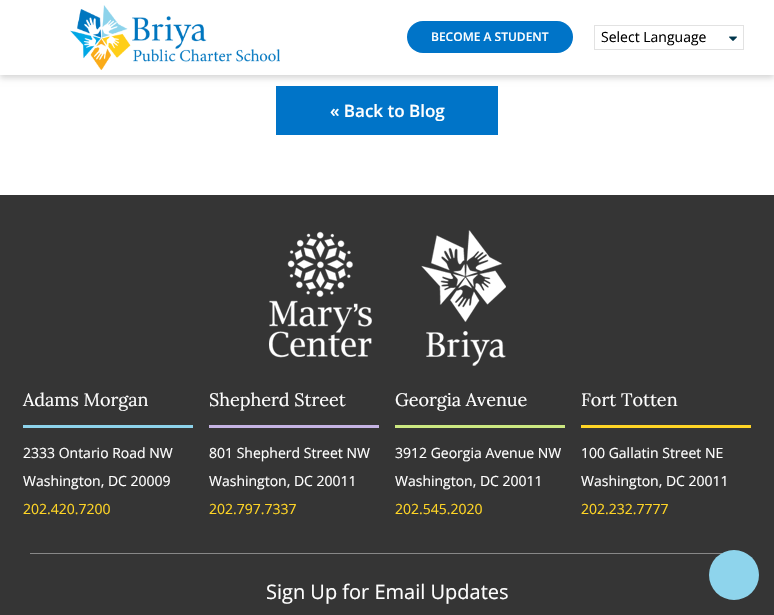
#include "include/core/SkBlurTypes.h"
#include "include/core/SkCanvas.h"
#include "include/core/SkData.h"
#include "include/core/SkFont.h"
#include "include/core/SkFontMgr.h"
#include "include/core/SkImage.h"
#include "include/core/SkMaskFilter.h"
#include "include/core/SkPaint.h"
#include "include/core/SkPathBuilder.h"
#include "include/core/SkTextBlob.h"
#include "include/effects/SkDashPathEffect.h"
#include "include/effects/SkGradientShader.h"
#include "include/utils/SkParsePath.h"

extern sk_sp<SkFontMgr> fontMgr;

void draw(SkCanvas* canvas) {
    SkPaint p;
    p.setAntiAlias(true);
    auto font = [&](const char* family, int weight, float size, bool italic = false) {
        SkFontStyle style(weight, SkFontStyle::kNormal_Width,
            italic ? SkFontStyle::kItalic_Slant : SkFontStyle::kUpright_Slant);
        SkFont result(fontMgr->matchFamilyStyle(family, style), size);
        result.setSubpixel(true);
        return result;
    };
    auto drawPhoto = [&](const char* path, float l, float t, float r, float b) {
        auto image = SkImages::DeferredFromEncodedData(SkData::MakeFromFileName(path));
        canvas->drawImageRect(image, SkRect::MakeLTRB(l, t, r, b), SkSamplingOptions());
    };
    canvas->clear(0xFFFFFFFF);
    p.setColor(0xFF0074C8);
    canvas->drawRect(SkRect::MakeLTRB(276, 86, 498, 135), p);
    p.setColor(0x29000000);
    p.setMaskFilter(SkMaskFilter::MakeBlur(kNormal_SkBlurStyle, 3));
    canvas->drawRect(SkRect::MakeLTRB(0, 3, 774, 78), p);
    p.setMaskFilter(nullptr);
    p.setColor(0xFFFFFFFF);
    canvas->drawRect(SkRect::MakeLTRB(0, 0, 774, 75), p);
    drawPhoto("media/1.png", 70, 5, 280, 70);
    p.setColor(0xFF0074C8);
    canvas->drawRoundRect(SkRect::MakeLTRB(407, 21, 573, 53), 16, 16, p);
    auto font1 = font("Open Sans", 600, 12);
    p.setColor(0xFFFFFFFF);
    canvas->drawString("BECOME A STUDENT", 431, 41, font1, p);
    p.setStyle(SkPaint::kStroke_Style);
    p.setStrokeWidth(1);
    p.setColor(0xFFE2E2E2);
    canvas->drawRect(SkRect::MakeLTRB(594.5f, 25.5f, 743.5f, 49.5f), p);
    auto font2 = font("Open Sans", 400, 14);
    p.setStyle(SkPaint::kFill_Style);
    p.setColor(0xFF000000);
    canvas->drawString("Select Language", 601, 42, font2, p);
    drawPhoto("media/2.png", 729, 36, 737, 41);
    auto font3 = font("Open Sans", 600, 17);
    p.setColor(0xFFFFFFFF);
    canvas->drawString("« Back to Blog", 330, 117, font3, p);
    p.setColor(0xFF353535);
    canvas->drawRect(SkRect::MakeLTRB(0, 195, 774, 615), p);
    drawPhoto("media/3.png", 269, 230, 506, 366);
    p.setColor(0xFF8DD3EB);
    canvas->drawRect(SkRect::MakeLTRB(23, 425, 193, 428), p);
    auto font4 = font("Lora", 400, 18);
    p.setColor(0xFFFFFFFF);
    canvas->drawString("Adams Morgan", 23, 406, font4, p);
    canvas->drawString("2333 Ontario Road NW", 23, 458, font2, p);
    canvas->drawString("Washington, DC 20009", 23, 486, font2, p);
    p.setColor(0xFFFFD525);
    canvas->drawString("202.420.7200", 23, 514, font2, p);
    p.setColor(0xFFC5B3E3);
    canvas->drawRect(SkRect::MakeLTRB(209, 425, 379, 428), p);
    p.setColor(0xFFFFFFFF);
    canvas->drawString("Shepherd Street", 209, 406, font4, p);
    canvas->drawString("801 Shepherd Street NW", 209, 458, font2, p);
    canvas->drawString("Washington, DC 20011", 209, 486, font2, p);
    p.setColor(0xFFFFD525);
    canvas->drawString("202.797.7337", 209, 514, font2, p);
    p.setColor(0xFFCCE881);
    canvas->drawRect(SkRect::MakeLTRB(395, 425, 565, 428), p);
    p.setColor(0xFFFFFFFF);
    canvas->drawString("Georgia Avenue", 395, 406, font4, p);
    canvas->drawString("3912 Georgia Avenue NW", 395, 458, font2, p);
    canvas->drawString("Washington, DC 20011", 395, 486, font2, p);
    p.setColor(0xFFFFD525);
    canvas->drawString("202.545.2020", 395, 514, font2, p);
    canvas->drawRect(SkRect::MakeLTRB(581, 425, 751, 428), p);
    p.setColor(0xFFFFFFFF);
    canvas->drawString("Fort Totten", 581, 406, font4, p);
    canvas->drawString("100 Gallatin Street NE", 581, 458, font2, p);
    canvas->drawString("Washington, DC 20011", 581, 486, font2, p);
    p.setColor(0xFFFFD525);
    canvas->drawString("202.232.7777", 581, 514, font2, p);
    p.setColor(0xFF888888);
    canvas->drawRect(SkRect::MakeLTRB(30, 553, 722, 554), p);
    auto font5 = font("Open Sans", 400, 20);
    p.setColor(0xFFFFFFFF);
    canvas->drawString("Sign Up for Email Updates", 266, 599, font5, p);
    p.setColor(0xFF8ED4EC);
    canvas->drawCircle(734, 575, 25, p);
}
